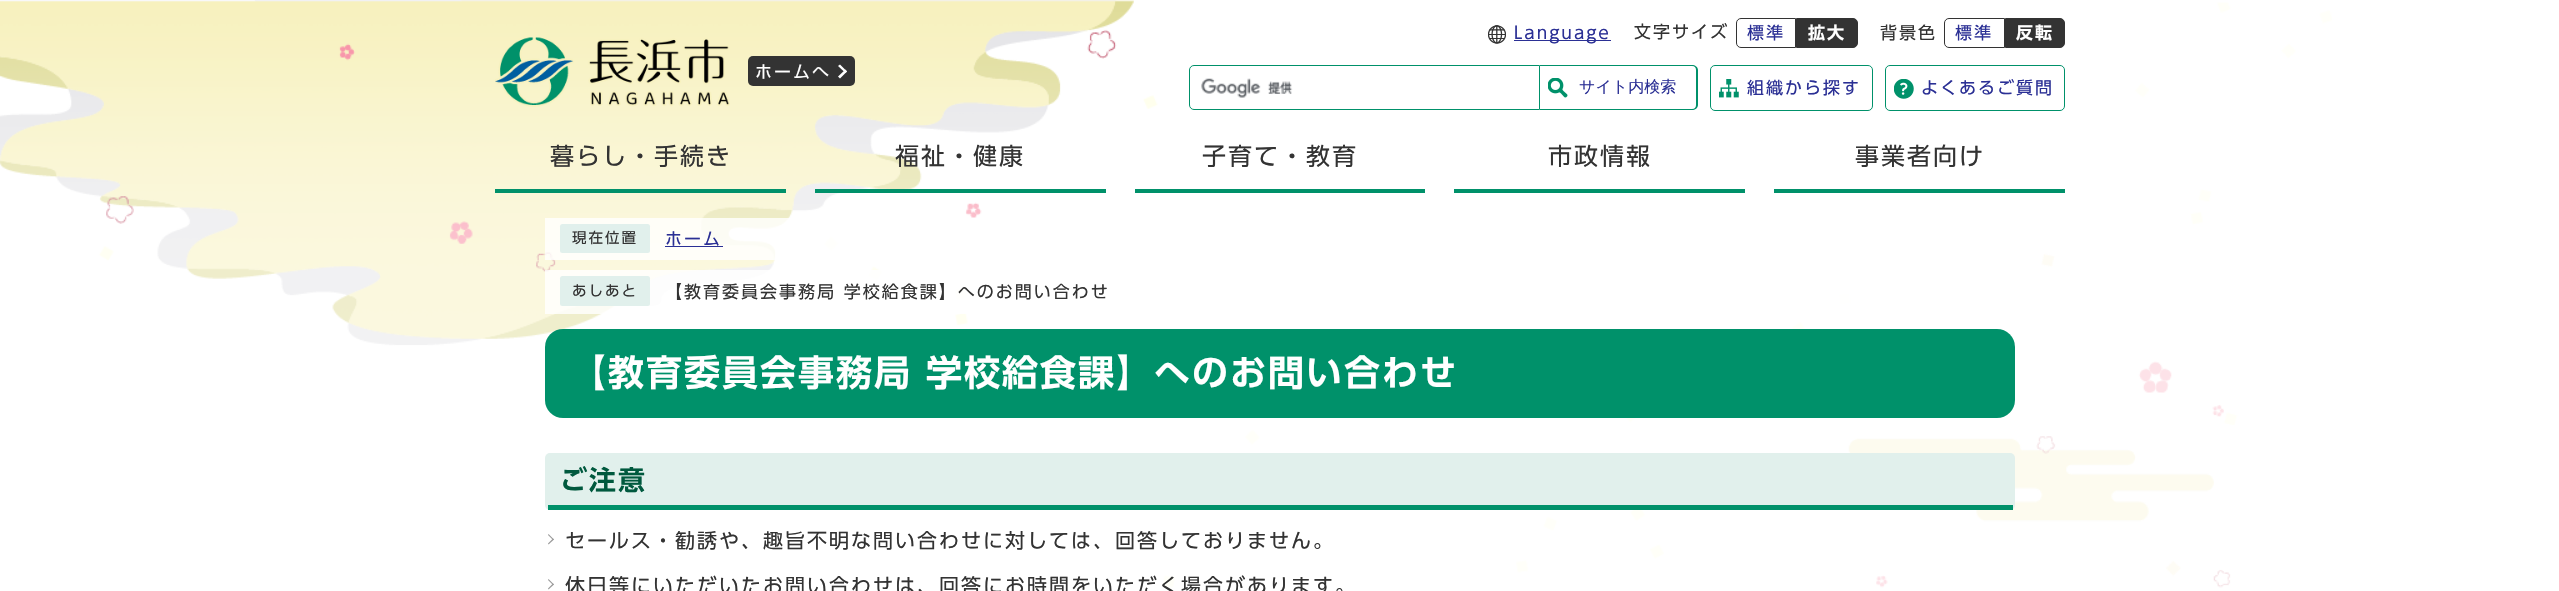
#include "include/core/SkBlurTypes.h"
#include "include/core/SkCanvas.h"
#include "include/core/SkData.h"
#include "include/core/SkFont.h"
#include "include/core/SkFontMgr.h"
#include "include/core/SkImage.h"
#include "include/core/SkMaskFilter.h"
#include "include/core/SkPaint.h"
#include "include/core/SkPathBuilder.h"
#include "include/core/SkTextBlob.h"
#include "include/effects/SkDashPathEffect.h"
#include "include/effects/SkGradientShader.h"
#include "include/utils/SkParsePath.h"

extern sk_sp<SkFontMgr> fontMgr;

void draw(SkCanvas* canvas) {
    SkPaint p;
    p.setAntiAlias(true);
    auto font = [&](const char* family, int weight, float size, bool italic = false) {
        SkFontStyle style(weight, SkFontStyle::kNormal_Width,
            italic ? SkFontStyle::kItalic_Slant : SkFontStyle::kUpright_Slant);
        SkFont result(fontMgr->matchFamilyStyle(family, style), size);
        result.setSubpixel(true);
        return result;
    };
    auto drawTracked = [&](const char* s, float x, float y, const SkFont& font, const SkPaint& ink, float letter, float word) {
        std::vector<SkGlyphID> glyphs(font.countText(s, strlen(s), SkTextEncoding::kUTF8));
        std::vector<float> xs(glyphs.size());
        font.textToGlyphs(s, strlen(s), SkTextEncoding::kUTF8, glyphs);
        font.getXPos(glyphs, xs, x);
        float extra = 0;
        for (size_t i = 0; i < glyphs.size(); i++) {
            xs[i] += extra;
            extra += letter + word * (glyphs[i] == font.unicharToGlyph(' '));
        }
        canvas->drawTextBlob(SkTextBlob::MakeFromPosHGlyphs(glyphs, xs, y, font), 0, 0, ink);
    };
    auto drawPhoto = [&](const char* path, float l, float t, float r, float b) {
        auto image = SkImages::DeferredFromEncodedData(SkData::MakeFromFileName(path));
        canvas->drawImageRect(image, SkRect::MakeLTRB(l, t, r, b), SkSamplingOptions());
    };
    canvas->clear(0xFFFFFFFF);
    drawPhoto("media/1.png", 0, 0, 2332, 588);
    drawPhoto("media/2.png", 495, 37, 730, 107);
    p.setColor(0xFF333333);
    canvas->drawRoundRect(SkRect::MakeLTRB(748, 56, 855, 86), 5, 5, p);
    auto font1 = font("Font", 400, 17);
    p.setColor(0xFFFFFFFF);
    drawTracked("ホームへ", 755, 78, font1, p, 2, 0);
    canvas->drawPath(SkPathBuilder().moveTo(838, 66).lineTo(840, 64.5f).lineTo(847, 71.5f).lineTo(845.5f, 73).close().detach(), p);
    canvas->drawPath(SkPathBuilder().moveTo(838, 76.5f).lineTo(845.5f, 69.5f).lineTo(847, 71.5f).lineTo(840, 78.5f).close().detach(), p);
    drawPhoto("media/3.png", 1488, 25, 1506, 44);
    p.setColor(0xFF2B3095);
    canvas->drawRect(SkRect::MakeLTRB(1514, 40, 1611, 41), p);
    drawTracked("Language", 1514, 39, font1, p, 2, 0);
    p.setColor(0xFF333333);
    drawTracked("文字サイズ", 1634, 38, font1, p, 2, 0);
    p.setStyle(SkPaint::kStroke_Style);
    p.setStrokeWidth(1);
    canvas->drawPath(SkPathBuilder().moveTo(1741, 18.5f).lineTo(1795.5f, 18.5f).lineTo(1795.5f, 47.5f).lineTo(1741, 47.5f).cubicTo(1738.5f, 47.5f, 1736.5f, 45.5f, 1736.5f, 43).lineTo(1736.5f, 23).cubicTo(1736.5f, 20.5f, 1738.5f, 18.5f, 1741, 18.5f).close().detach(), p);
    p.setStyle(SkPaint::kFill_Style);
    p.setColor(0xFF2B3095);
    drawTracked("標準", 1747, 39, font1, p, 2, 0);
    p.setColor(0xFF333333);
    canvas->drawPath(SkPathBuilder().moveTo(1796.5f, 18.5f).lineTo(1853, 18.5f).cubicTo(1855.5f, 18.5f, 1857.5f, 20.5f, 1857.5f, 23).lineTo(1857.5f, 43).cubicTo(1857.5f, 45.5f, 1855.5f, 47.5f, 1853, 47.5f).lineTo(1796.5f, 47.5f).close().detach(), p);
    p.setStyle(SkPaint::kStroke_Style);
    canvas->drawPath(SkPathBuilder().moveTo(1796.5f, 18.5f).lineTo(1853, 18.5f).cubicTo(1855.5f, 18.5f, 1857.5f, 20.5f, 1857.5f, 23).lineTo(1857.5f, 43).cubicTo(1857.5f, 45.5f, 1855.5f, 47.5f, 1853, 47.5f).lineTo(1796.5f, 47.5f).close().detach(), p);
    auto font2 = font("Font", 600, 17);
    p.setStyle(SkPaint::kFill_Style);
    p.setColor(0xFFFFFFFF);
    drawTracked("拡大", 1808, 39, font2, p, 2, 0);
    p.setColor(0xFF333333);
    drawTracked("背景色", 1880, 39, font1, p, 2, 0);
    p.setStyle(SkPaint::kStroke_Style);
    canvas->drawPath(SkPathBuilder().moveTo(1949, 18.5f).lineTo(2004.5f, 18.5f).lineTo(2004.5f, 47.5f).lineTo(1949, 47.5f).cubicTo(1946.5f, 47.5f, 1944.5f, 45.5f, 1944.5f, 43).lineTo(1944.5f, 23).cubicTo(1944.5f, 20.5f, 1946.5f, 18.5f, 1949, 18.5f).close().detach(), p);
    p.setStyle(SkPaint::kFill_Style);
    p.setColor(0xFF2B3095);
    drawTracked("標準", 1955, 39, font1, p, 2, 0);
    p.setColor(0xFF333333);
    canvas->drawPath(SkPathBuilder().moveTo(2005.5f, 18.5f).lineTo(2060, 18.5f).cubicTo(2062.5f, 18.5f, 2064.5f, 20.5f, 2064.5f, 23).lineTo(2064.5f, 43).cubicTo(2064.5f, 45.5f, 2062.5f, 47.5f, 2060, 47.5f).lineTo(2005.5f, 47.5f).close().detach(), p);
    p.setStyle(SkPaint::kStroke_Style);
    canvas->drawPath(SkPathBuilder().moveTo(2005.5f, 18.5f).lineTo(2060, 18.5f).cubicTo(2062.5f, 18.5f, 2064.5f, 20.5f, 2064.5f, 23).lineTo(2064.5f, 43).cubicTo(2064.5f, 45.5f, 2062.5f, 47.5f, 2060, 47.5f).lineTo(2005.5f, 47.5f).close().detach(), p);
    p.setStyle(SkPaint::kFill_Style);
    p.setColor(0xFFFFFFFF);
    drawTracked("反転", 2016, 39, font2, p, 2, 0);
    drawPhoto("media/4.png", 1201, 78, 1293, 98);
    p.setStyle(SkPaint::kStroke_Style);
    p.setColor(0xFF00916A);
    canvas->drawPath(SkPathBuilder().moveTo(1194, 65.5f).lineTo(1539.5f, 65.5f).lineTo(1539.5f, 109.5f).lineTo(1194, 109.5f).cubicTo(1191.5f, 109.5f, 1189.5f, 107.5f, 1189.5f, 105).lineTo(1189.5f, 70).cubicTo(1189.5f, 67.5f, 1191.5f, 65.5f, 1194, 65.5f).close().detach(), p);
    drawPhoto("media/5.png", 1548, 78, 1568, 98);
    p.setStyle(SkPaint::kFill_Style);
    canvas->drawPath(SkPathBuilder(SkPathFillType::kEvenOdd).moveTo(1540, 65).lineTo(1692, 65).cubicTo(1695, 65, 1698, 67, 1698, 70).lineTo(1698, 105).cubicTo(1698, 108, 1695, 110, 1692, 110).lineTo(1540, 110).close().moveTo(1540, 66).lineTo(1692, 66).cubicTo(1695, 66, 1696, 68, 1696, 70).lineTo(1696, 105).cubicTo(1696, 107, 1695, 109, 1692, 109).lineTo(1540, 109).close().detach(), p);
    auto font3 = font("WenQuanYi Zen Hei", 500, 16);
    p.setColor(0xFF2B3095);
    canvas->drawString("サイト内検索", 1579, 92, font3, p);
    drawPhoto("media/6.png", 1719, 79, 1739, 98);
    p.setStyle(SkPaint::kStroke_Style);
    p.setColor(0xFF00916A);
    canvas->drawRoundRect(SkRect::MakeLTRB(1710.5f, 65.5f, 1872.5f, 110.5f), 4.5f, 4.5f, p);
    p.setStyle(SkPaint::kFill_Style);
    p.setColor(0xFF2B3095);
    drawTracked("組織から探す", 1747, 94, font1, p, 2, 0);
    drawPhoto("media/7.png", 1894, 79, 1914, 99);
    p.setStyle(SkPaint::kStroke_Style);
    p.setColor(0xFF00916A);
    canvas->drawRoundRect(SkRect::MakeLTRB(1885.5f, 65.5f, 2064.5f, 110.5f), 4.5f, 4.5f, p);
    p.setStyle(SkPaint::kFill_Style);
    p.setColor(0xFF2B3095);
    drawTracked("よくあるご質問", 1921, 94, font1, p, 2, 0);
    p.setColor(0xFF00916A);
    canvas->drawRect(SkRect::MakeLTRB(495, 189, 786, 193), p);
    auto font4 = font("Font", 400, 24);
    p.setColor(0xFF333333);
    drawTracked("暮らし・手続き", 550, 165, font4, p, 2, 0);
    p.setColor(0xFF00916A);
    canvas->drawRect(SkRect::MakeLTRB(815, 189, 1106, 193), p);
    p.setColor(0xFF333333);
    drawTracked("福祉・健康", 895, 165, font4, p, 2, 0);
    p.setColor(0xFF00916A);
    canvas->drawRect(SkRect::MakeLTRB(1135, 189, 1425, 193), p);
    p.setColor(0xFF333333);
    drawTracked("子育て・教育", 1202, 165, font4, p, 2, 0);
    p.setColor(0xFF00916A);
    canvas->drawRect(SkRect::MakeLTRB(1454, 189, 1745, 193), p);
    p.setColor(0xFF333333);
    drawTracked("市政情報", 1548, 165, font4, p, 2, 0);
    p.setColor(0xFF00916A);
    canvas->drawRect(SkRect::MakeLTRB(1774, 189, 2065, 193), p);
    p.setColor(0xFF333333);
    drawTracked("事業者向け", 1855, 165, font4, p, 2, 0);
    p.setColor(0xCCFFFFFF);
    canvas->drawRect(SkRect::MakeLTRB(545, 218, 839, 260), p);
    p.setColor(0xFFE1F0EC);
    canvas->drawRoundRect(SkRect::MakeLTRB(560, 224, 650, 253), 2.5f, 2.5f, p);
    auto font5 = font("Font", 400, 14.5f);
    p.setColor(0xFF333333);
    drawTracked("現在位置", 572, 243, font5, p, 2, 0);
    p.setColor(0xFF2B3095);
    drawTracked("ホーム", 665, 245, font1, p, 2, 0);
    canvas->drawRect(SkRect::MakeLTRB(665, 246, 723, 247), p);
    p.setColor(0xCCFFFFFF);
    canvas->drawRect(SkRect::MakeLTRB(545, 270, 1850, 314), p);
    p.setColor(0xFFE1F0EC);
    canvas->drawRoundRect(SkRect::MakeLTRB(560, 276, 650, 306), 2.5f, 2.5f, p);
    p.setColor(0xFF333333);
    drawTracked("あしあと", 572, 296, font5, p, 2, 0);
    drawTracked("【教育委員会事務局 学校給食課】へのお問い合わせ", 665, 298, font1, p, 2, 0);
    p.setColor(0xFF00916A);
    canvas->drawRoundRect(SkRect::MakeLTRB(545, 329, 2015, 418), 18, 18, p);
    auto font6 = font("Font", 600, 36);
    p.setColor(0xFFFFFFFF);
    drawTracked("【教育委員会事務局 学校給食課】へのお問い合わせ", 570, 386, font6, p, 2, 0);
    p.setColor(0xFFE1F0EC);
    canvas->drawRoundRect(SkRect::MakeLTRB(545, 453, 2015, 510), 5, 5, p);
    p.setColor(0xFF00916A);
    canvas->drawRect(SkRect::MakeLTRB(548, 505, 2013, 510), p);
    auto font7 = font("Font", 600, 27);
    p.setColor(0xFF00593E);
    drawTracked("ご注意", 560, 490, font7, p, 2, 0);
    p.setColor(0xFF999999);
    canvas->drawPath(SkPathBuilder().moveTo(548, 535).lineTo(548.5f, 534).lineTo(554, 539.5f).lineTo(553, 540).close().detach(), p);
    canvas->drawPath(SkPathBuilder().moveTo(548, 543.5f).lineTo(553, 538.5f).lineTo(554, 539.5f).lineTo(548.5f, 544.5f).close().detach(), p);
    auto font8 = font("Font", 400, 20);
    p.setColor(0xFF333333);
    drawTracked("セールス・勧誘や、趣旨不明な問い合わせに対しては、回答しておりません。", 565, 548, font8, p, 2, 0);
    p.setColor(0xFF999999);
    canvas->drawPath(SkPathBuilder().moveTo(548, 580).lineTo(548.5f, 579).lineTo(554, 584.5f).lineTo(553, 585).close().detach(), p);
    canvas->drawPath(SkPathBuilder().moveTo(548, 588.5f).lineTo(553, 583.5f).lineTo(554, 584.5f).lineTo(548.5f, 589.5f).close().detach(), p);
    p.setColor(0xFF333333);
    drawTracked("休日等にいただいたお問い合わせは、回答にお時間をいただく場合があります。", 565, 593, font8, p, 2, 0);
}
